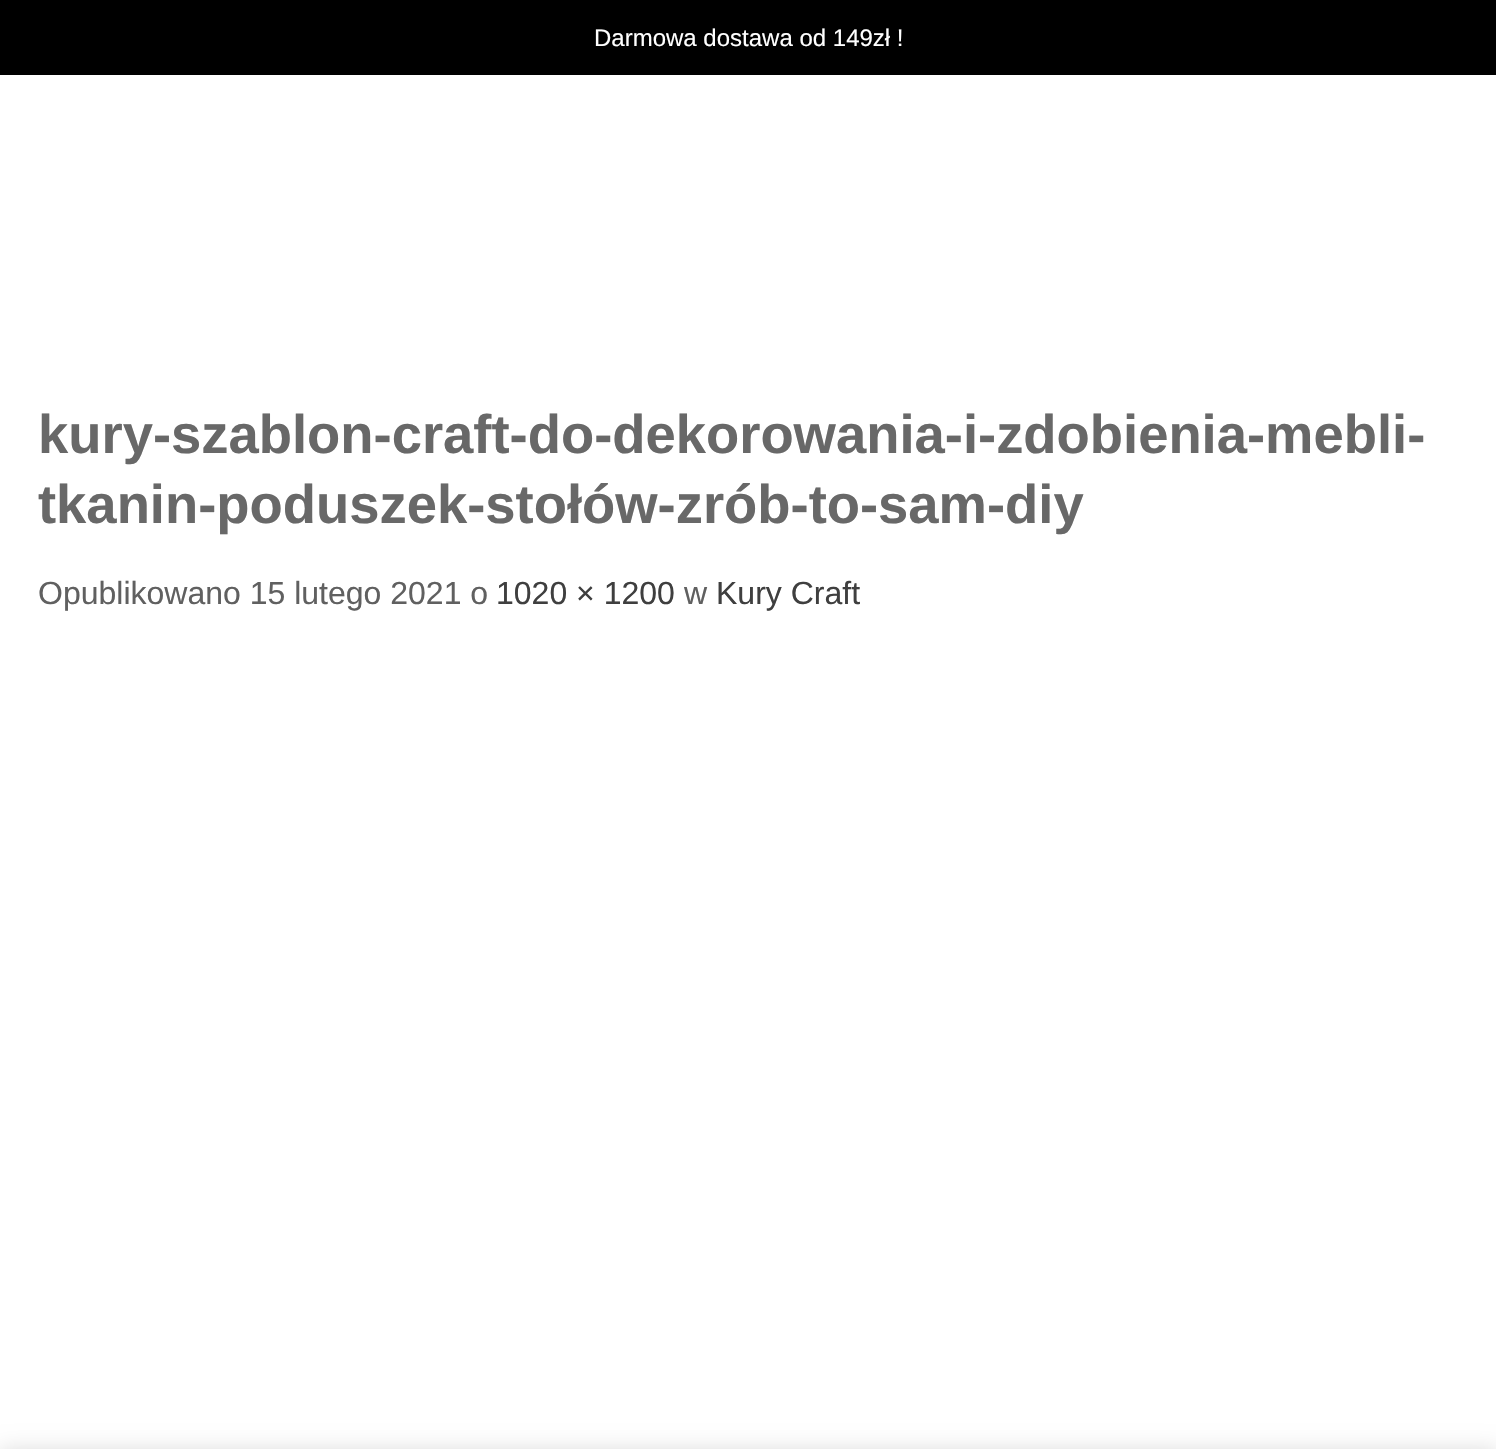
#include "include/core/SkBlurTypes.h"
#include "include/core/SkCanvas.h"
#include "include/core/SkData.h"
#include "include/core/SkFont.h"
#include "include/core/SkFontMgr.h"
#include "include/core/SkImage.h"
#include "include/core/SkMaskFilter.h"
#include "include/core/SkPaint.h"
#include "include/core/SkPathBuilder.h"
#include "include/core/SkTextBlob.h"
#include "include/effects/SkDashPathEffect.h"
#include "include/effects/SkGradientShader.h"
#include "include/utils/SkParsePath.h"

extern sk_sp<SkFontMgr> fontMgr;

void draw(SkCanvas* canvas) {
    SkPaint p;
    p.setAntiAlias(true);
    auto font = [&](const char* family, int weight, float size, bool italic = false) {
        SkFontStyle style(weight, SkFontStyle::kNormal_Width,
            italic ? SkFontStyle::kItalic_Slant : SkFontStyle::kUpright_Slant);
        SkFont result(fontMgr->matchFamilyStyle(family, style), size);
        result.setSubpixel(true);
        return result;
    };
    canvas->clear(0xFFFFFFFF);
    p.setColor(0xFF000000);
    canvas->drawRect(SkRect::MakeLTRB(0, 0, 1496, 75), p);
    auto font1 = font("Liberation Sans", 400, 24);
    p.setColor(0xFFFFFFFF);
    canvas->drawString("Darmowa dostawa od 149zł !", 594, 46, font1, p);
    auto font2 = font("Liberation Sans", 700, 54.4f);
    p.setColor(0xFF686868);
    canvas->drawString("kury-szablon-craft-do-dekorowania-i-zdobienia-mebli-", 38, 453, font2, p);
    canvas->drawString("tkanin-poduszek-stołów-zrób-to-sam-diy", 38, 523, font2, p);
    auto font3 = font("Liberation Sans", 400, 32);
    p.setColor(0xFF606060);
    canvas->drawString("Opublikowano 15 lutego 2021 o", 38, 604, font3, p);
    p.setColor(0xFF3F3F3F);
    canvas->drawString("1020 × 1200", 496, 604, font3, p);
    p.setColor(0xFF606060);
    canvas->drawString("w", 684, 604, font3, p);
    p.setColor(0xFF3F3F3F);
    canvas->drawString("Kury Craft", 716, 604, font3, p);
    p.setColor(0x24000000);
    p.setMaskFilter(SkMaskFilter::MakeBlur(kNormal_SkBlurStyle, 11));
    canvas->drawRect(SkRect::MakeLTRB(0, 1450, 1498, 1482), p);
    p.setMaskFilter(nullptr);
}
